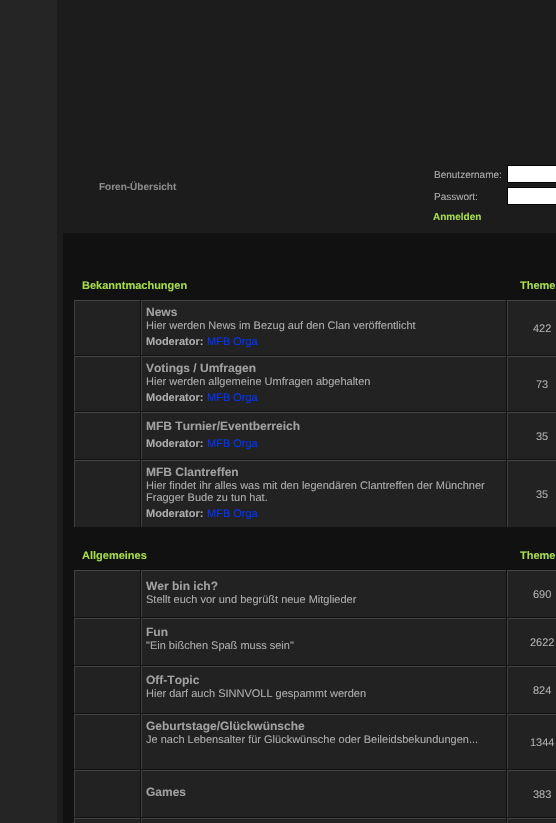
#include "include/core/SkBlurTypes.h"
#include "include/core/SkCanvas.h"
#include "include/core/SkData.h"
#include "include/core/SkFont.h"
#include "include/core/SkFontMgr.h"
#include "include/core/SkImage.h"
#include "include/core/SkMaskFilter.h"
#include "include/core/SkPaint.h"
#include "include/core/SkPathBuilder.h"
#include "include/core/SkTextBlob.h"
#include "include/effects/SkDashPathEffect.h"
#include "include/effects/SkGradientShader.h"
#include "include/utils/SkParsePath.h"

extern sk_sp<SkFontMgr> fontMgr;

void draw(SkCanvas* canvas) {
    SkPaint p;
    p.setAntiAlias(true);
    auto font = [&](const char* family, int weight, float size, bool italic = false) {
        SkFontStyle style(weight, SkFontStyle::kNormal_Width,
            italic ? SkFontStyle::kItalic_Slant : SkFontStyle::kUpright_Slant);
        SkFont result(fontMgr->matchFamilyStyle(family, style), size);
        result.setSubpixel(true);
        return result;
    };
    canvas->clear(0xFF1C1C1C);
    p.setColor(0xFF252525);
    canvas->drawRect(SkRect::MakeLTRB(0, 0, 57, 823), p);
    auto font1 = font("Liberation Sans", 700, 10);
    p.setColor(0xFF8B8B8B);
    canvas->drawString("Foren-Übersicht", 99, 190, font1, p);
    auto font2 = font("Liberation Sans", 400, 10);
    p.setColor(0xFFADADAD);
    canvas->drawString("Benutzername:", 434, 178, font2, p);
    p.setColor(0xFFFFFFFF);
    canvas->drawRect(SkRect::MakeLTRB(507.5f, 165.5f, 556.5f, 182.5f), p);
    p.setStyle(SkPaint::kStroke_Style);
    p.setStrokeWidth(1);
    p.setColor(0xFF040404);
    canvas->drawRect(SkRect::MakeLTRB(507.5f, 165.5f, 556.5f, 182.5f), p);
    p.setStyle(SkPaint::kFill_Style);
    p.setColor(0xFFADADAD);
    canvas->drawString("Passwort:", 434, 200, font2, p);
    p.setColor(0xFFFFFFFF);
    canvas->drawRect(SkRect::MakeLTRB(507.5f, 187.5f, 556.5f, 204.5f), p);
    p.setStyle(SkPaint::kStroke_Style);
    p.setColor(0xFF040404);
    canvas->drawRect(SkRect::MakeLTRB(507.5f, 187.5f, 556.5f, 204.5f), p);
    p.setStyle(SkPaint::kFill_Style);
    p.setColor(0xFFA6DC49);
    canvas->drawString("Anmelden", 433, 220, font1, p);
    p.setColor(0xFF111111);
    canvas->drawRect(SkRect::MakeLTRB(63, 233, 556, 823), p);
    auto font3 = font("Liberation Sans", 700, 11);
    p.setColor(0xFFA6DC49);
    canvas->drawString("Bekanntmachungen", 82, 289, font3, p);
    canvas->drawString("Theme", 520, 289, font3, p);
    {
        const struct { float l, t, r, b; SkColor color; } items[] = {
            {75, 301, 140, 355, 0xFF222222},
            {74, 300, 140, 301, 0xFF444444},
            {74, 300, 75, 355, 0xFF404040},
            {142, 301, 506, 355, 0xFF222222},
            {141, 300, 506, 301, 0xFF444444},
            {141, 300, 142, 355, 0xFF404040},
        };
        for (auto [l, t, r, b, color] : items) {
            p.setColor(color);
            canvas->drawRect(SkRect::MakeLTRB(l, t, r, b), p);
        }
    }
    auto font4 = font("Liberation Sans", 700, 12);
    p.setColor(0xFFA1A1A1);
    canvas->drawString("News", 146, 316, font4, p);
    auto font5 = font("Liberation Sans", 400, 11);
    p.setColor(0xFFADADAD);
    canvas->drawString("Hier werden News im Bezug auf den Clan veröffentlicht", 146, 329, font5, p);
    canvas->drawString("Moderator:", 146, 345, font3, p);
    p.setColor(0xFF0033FF);
    canvas->drawString("MFB Orga", 207, 345, font5, p);
    {
        const struct { float l, t, r, b; SkColor color; } items[] = {
            {508, 301, 556, 355, 0xFF222222},
            {507, 300, 556, 301, 0xFF444444},
            {507, 300, 508, 355, 0xFF404040},
        };
        for (auto [l, t, r, b, color] : items) {
            p.setColor(color);
            canvas->drawRect(SkRect::MakeLTRB(l, t, r, b), p);
        }
    }
    p.setColor(0xFFADADAD);
    canvas->drawString("422", 533, 332, font5, p);
    {
        const struct { float l, t, r, b; SkColor color; } items[] = {
            {75, 357, 140, 411, 0xFF222222},
            {74, 356, 140, 357, 0xFF444444},
            {74, 356, 75, 411, 0xFF404040},
            {142, 357, 506, 411, 0xFF222222},
            {141, 356, 506, 357, 0xFF444444},
            {141, 356, 142, 411, 0xFF404040},
        };
        for (auto [l, t, r, b, color] : items) {
            p.setColor(color);
            canvas->drawRect(SkRect::MakeLTRB(l, t, r, b), p);
        }
    }
    p.setColor(0xFFA1A1A1);
    canvas->drawString("Votings / Umfragen", 146, 372, font4, p);
    p.setColor(0xFFADADAD);
    canvas->drawString("Hier werden allgemeine Umfragen abgehalten", 146, 385, font5, p);
    canvas->drawString("Moderator:", 146, 401, font3, p);
    p.setColor(0xFF0033FF);
    canvas->drawString("MFB Orga", 207, 401, font5, p);
    {
        const struct { float l, t, r, b; SkColor color; } items[] = {
            {508, 357, 556, 411, 0xFF222222},
            {507, 356, 556, 357, 0xFF444444},
            {507, 356, 508, 411, 0xFF404040},
        };
        for (auto [l, t, r, b, color] : items) {
            p.setColor(color);
            canvas->drawRect(SkRect::MakeLTRB(l, t, r, b), p);
        }
    }
    p.setColor(0xFFADADAD);
    canvas->drawString("73", 536, 388, font5, p);
    {
        const struct { float l, t, r, b; SkColor color; } items[] = {
            {75, 413, 140, 459, 0xFF222222},
            {74, 412, 140, 413, 0xFF444444},
            {74, 412, 75, 459, 0xFF404040},
            {142, 413, 506, 459, 0xFF222222},
            {141, 412, 506, 413, 0xFF444444},
            {141, 412, 142, 459, 0xFF404040},
        };
        for (auto [l, t, r, b, color] : items) {
            p.setColor(color);
            canvas->drawRect(SkRect::MakeLTRB(l, t, r, b), p);
        }
    }
    p.setColor(0xFFA1A1A1);
    canvas->drawString("MFB Turnier/Eventberreich", 146, 430, font4, p);
    p.setColor(0xFFADADAD);
    canvas->drawString("Moderator:", 146, 447, font3, p);
    p.setColor(0xFF0033FF);
    canvas->drawString("MFB Orga", 207, 447, font5, p);
    {
        const struct { float l, t, r, b; SkColor color; } items[] = {
            {508, 413, 556, 459, 0xFF222222},
            {507, 412, 556, 413, 0xFF444444},
            {507, 412, 508, 459, 0xFF404040},
        };
        for (auto [l, t, r, b, color] : items) {
            p.setColor(color);
            canvas->drawRect(SkRect::MakeLTRB(l, t, r, b), p);
        }
    }
    p.setColor(0xFFADADAD);
    canvas->drawString("35", 536, 440, font5, p);
    {
        const struct { float l, t, r, b; SkColor color; } items[] = {
            {75, 461, 140, 527, 0xFF222222},
            {74, 460, 140, 461, 0xFF444444},
            {74, 460, 75, 527, 0xFF404040},
            {142, 461, 506, 527, 0xFF222222},
            {141, 460, 506, 461, 0xFF444444},
            {141, 460, 142, 527, 0xFF404040},
        };
        for (auto [l, t, r, b, color] : items) {
            p.setColor(color);
            canvas->drawRect(SkRect::MakeLTRB(l, t, r, b), p);
        }
    }
    p.setColor(0xFFA1A1A1);
    canvas->drawString("MFB Clantreffen", 146, 476, font4, p);
    p.setColor(0xFFADADAD);
    canvas->drawString("Hier findet ihr alles was mit den legendären Clantreffen der Münchner", 146, 489, font5, p);
    canvas->drawString("Fragger Bude zu tun hat.", 146, 501, font5, p);
    canvas->drawString("Moderator:", 146, 517, font3, p);
    p.setColor(0xFF0033FF);
    canvas->drawString("MFB Orga", 207, 517, font5, p);
    {
        const struct { float l, t, r, b; SkColor color; } items[] = {
            {508, 461, 556, 527, 0xFF222222},
            {507, 460, 556, 461, 0xFF444444},
            {507, 460, 508, 527, 0xFF404040},
        };
        for (auto [l, t, r, b, color] : items) {
            p.setColor(color);
            canvas->drawRect(SkRect::MakeLTRB(l, t, r, b), p);
        }
    }
    p.setColor(0xFFADADAD);
    canvas->drawString("35", 536, 498, font5, p);
    p.setColor(0xFFA6DC49);
    canvas->drawString("Allgemeines", 82, 559, font3, p);
    canvas->drawString("Theme", 520, 559, font3, p);
    {
        const struct { float l, t, r, b; SkColor color; } items[] = {
            {75, 571, 140, 617, 0xFF222222},
            {74, 570, 140, 571, 0xFF444444},
            {74, 570, 75, 617, 0xFF404040},
            {142, 571, 506, 617, 0xFF222222},
            {141, 570, 506, 571, 0xFF444444},
            {141, 570, 142, 617, 0xFF404040},
        };
        for (auto [l, t, r, b, color] : items) {
            p.setColor(color);
            canvas->drawRect(SkRect::MakeLTRB(l, t, r, b), p);
        }
    }
    p.setColor(0xFFA1A1A1);
    canvas->drawString("Wer bin ich?", 146, 590, font4, p);
    p.setColor(0xFFADADAD);
    canvas->drawString("Stellt euch vor und begrüßt neue Mitglieder", 146, 603, font5, p);
    {
        const struct { float l, t, r, b; SkColor color; } items[] = {
            {508, 571, 556, 617, 0xFF222222},
            {507, 570, 556, 571, 0xFF444444},
            {507, 570, 508, 617, 0xFF404040},
        };
        for (auto [l, t, r, b, color] : items) {
            p.setColor(color);
            canvas->drawRect(SkRect::MakeLTRB(l, t, r, b), p);
        }
    }
    p.setColor(0xFFADADAD);
    canvas->drawString("690", 533, 598, font5, p);
    {
        const struct { float l, t, r, b; SkColor color; } items[] = {
            {75, 619, 140, 665, 0xFF222222},
            {74, 618, 140, 619, 0xFF444444},
            {74, 618, 75, 665, 0xFF404040},
            {142, 619, 506, 665, 0xFF222222},
            {141, 618, 506, 619, 0xFF444444},
            {141, 618, 142, 665, 0xFF404040},
        };
        for (auto [l, t, r, b, color] : items) {
            p.setColor(color);
            canvas->drawRect(SkRect::MakeLTRB(l, t, r, b), p);
        }
    }
    p.setColor(0xFFA1A1A1);
    canvas->drawString("Fun", 146, 636, font4, p);
    p.setColor(0xFFADADAD);
    canvas->drawString("\"Ein bißchen Spaß muss sein\"", 146, 649, font5, p);
    {
        const struct { float l, t, r, b; SkColor color; } items[] = {
            {508, 619, 556, 665, 0xFF222222},
            {507, 618, 556, 619, 0xFF444444},
            {507, 618, 508, 665, 0xFF404040},
        };
        for (auto [l, t, r, b, color] : items) {
            p.setColor(color);
            canvas->drawRect(SkRect::MakeLTRB(l, t, r, b), p);
        }
    }
    p.setColor(0xFFADADAD);
    canvas->drawString("2622", 530, 646, font5, p);
    {
        const struct { float l, t, r, b; SkColor color; } items[] = {
            {75, 667, 140, 713, 0xFF222222},
            {74, 666, 140, 667, 0xFF444444},
            {74, 666, 75, 713, 0xFF404040},
            {142, 667, 506, 713, 0xFF222222},
            {141, 666, 506, 667, 0xFF444444},
            {141, 666, 142, 713, 0xFF404040},
        };
        for (auto [l, t, r, b, color] : items) {
            p.setColor(color);
            canvas->drawRect(SkRect::MakeLTRB(l, t, r, b), p);
        }
    }
    p.setColor(0xFFA1A1A1);
    canvas->drawString("Off-Topic", 146, 684, font4, p);
    p.setColor(0xFFADADAD);
    canvas->drawString("Hier darf auch SINNVOLL gespammt werden", 146, 697, font5, p);
    {
        const struct { float l, t, r, b; SkColor color; } items[] = {
            {508, 667, 556, 713, 0xFF222222},
            {507, 666, 556, 667, 0xFF444444},
            {507, 666, 508, 713, 0xFF404040},
        };
        for (auto [l, t, r, b, color] : items) {
            p.setColor(color);
            canvas->drawRect(SkRect::MakeLTRB(l, t, r, b), p);
        }
    }
    p.setColor(0xFFADADAD);
    canvas->drawString("824", 533, 694, font5, p);
    {
        const struct { float l, t, r, b; SkColor color; } items[] = {
            {75, 715, 140, 769, 0xFF222222},
            {74, 714, 140, 715, 0xFF444444},
            {74, 714, 75, 769, 0xFF404040},
            {142, 715, 506, 769, 0xFF222222},
            {141, 714, 506, 715, 0xFF444444},
            {141, 714, 142, 769, 0xFF404040},
        };
        for (auto [l, t, r, b, color] : items) {
            p.setColor(color);
            canvas->drawRect(SkRect::MakeLTRB(l, t, r, b), p);
        }
    }
    p.setColor(0xFFA1A1A1);
    canvas->drawString("Geburtstage/Glückwünsche", 146, 730, font4, p);
    p.setColor(0xFFADADAD);
    canvas->drawString("Je nach Lebensalter für Glückwünsche oder Beileidsbekundungen...", 146, 743, font5, p);
    {
        const struct { float l, t, r, b; SkColor color; } items[] = {
            {508, 715, 556, 769, 0xFF222222},
            {507, 714, 556, 715, 0xFF444444},
            {507, 714, 508, 769, 0xFF404040},
        };
        for (auto [l, t, r, b, color] : items) {
            p.setColor(color);
            canvas->drawRect(SkRect::MakeLTRB(l, t, r, b), p);
        }
    }
    p.setColor(0xFFADADAD);
    canvas->drawString("1344", 530, 746, font5, p);
    {
        const struct { float l, t, r, b; SkColor color; } items[] = {
            {75, 771, 140, 817, 0xFF222222},
            {74, 770, 140, 771, 0xFF444444},
            {74, 770, 75, 817, 0xFF404040},
            {142, 771, 506, 817, 0xFF222222},
            {141, 770, 506, 771, 0xFF444444},
            {141, 770, 142, 817, 0xFF404040},
        };
        for (auto [l, t, r, b, color] : items) {
            p.setColor(color);
            canvas->drawRect(SkRect::MakeLTRB(l, t, r, b), p);
        }
    }
    p.setColor(0xFFA1A1A1);
    canvas->drawString("Games", 146, 796, font4, p);
    {
        const struct { float l, t, r, b; SkColor color; } items[] = {
            {508, 771, 556, 817, 0xFF222222},
            {507, 770, 556, 771, 0xFF444444},
            {507, 770, 508, 817, 0xFF404040},
        };
        for (auto [l, t, r, b, color] : items) {
            p.setColor(color);
            canvas->drawRect(SkRect::MakeLTRB(l, t, r, b), p);
        }
    }
    p.setColor(0xFFADADAD);
    canvas->drawString("383", 533, 798, font5, p);
    {
        const struct { float l, t, r, b; SkColor color; } items[] = {
            {74, 819, 140, 823, 0xFF222222},
            {74, 818, 140, 819, 0xFF444444},
            {74, 818, 75, 823, 0xFF404040},
            {141, 819, 506, 823, 0xFF222222},
            {141, 818, 506, 819, 0xFF444444},
            {141, 818, 142, 823, 0xFF404040},
            {507, 819, 556, 823, 0xFF222222},
            {507, 818, 556, 819, 0xFF444444},
            {507, 818, 508, 823, 0xFF404040},
        };
        for (auto [l, t, r, b, color] : items) {
            p.setColor(color);
            canvas->drawRect(SkRect::MakeLTRB(l, t, r, b), p);
        }
    }
}
